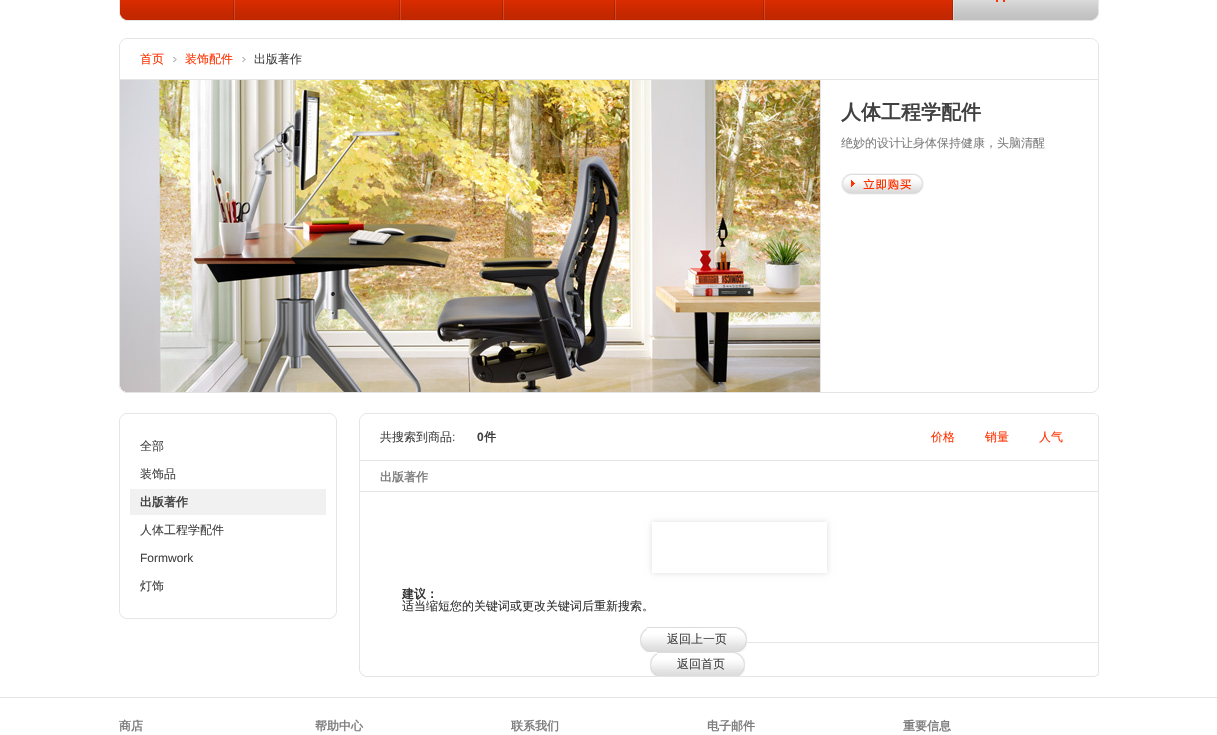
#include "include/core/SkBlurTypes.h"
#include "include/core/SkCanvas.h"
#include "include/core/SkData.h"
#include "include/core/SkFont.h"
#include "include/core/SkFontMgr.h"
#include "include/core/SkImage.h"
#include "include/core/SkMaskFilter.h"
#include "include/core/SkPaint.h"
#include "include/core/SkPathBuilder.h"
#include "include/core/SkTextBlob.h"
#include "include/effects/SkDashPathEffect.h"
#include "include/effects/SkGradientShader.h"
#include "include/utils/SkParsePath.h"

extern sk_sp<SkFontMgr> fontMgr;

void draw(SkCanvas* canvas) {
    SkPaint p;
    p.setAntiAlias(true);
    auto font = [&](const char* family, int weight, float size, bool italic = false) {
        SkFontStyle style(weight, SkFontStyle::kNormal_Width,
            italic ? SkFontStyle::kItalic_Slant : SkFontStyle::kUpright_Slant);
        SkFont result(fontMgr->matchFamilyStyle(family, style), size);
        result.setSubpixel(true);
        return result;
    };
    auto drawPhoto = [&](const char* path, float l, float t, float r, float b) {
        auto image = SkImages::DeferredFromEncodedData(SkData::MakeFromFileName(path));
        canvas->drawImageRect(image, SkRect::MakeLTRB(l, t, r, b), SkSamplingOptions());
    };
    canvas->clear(0xFFFFFFFF);
    drawPhoto("media/1.png", 119, 0, 233, 21);
    drawPhoto("media/2.png", 233, 0, 399, 21);
    drawPhoto("media/3.png", 399, 0, 502, 21);
    drawPhoto("media/4.png", 502, 0, 614, 21);
    drawPhoto("media/5.png", 614, 0, 763, 21);
    drawPhoto("media/6.png", 763, 0, 952, 21);
    drawPhoto("media/7.png", 952, 0, 1099, 21);
    drawPhoto("media/8.png", 996, 0, 1005, 2);
    p.setColor(0xFFE5E5E5);
    canvas->drawRect(SkRect::MakeLTRB(1098, 38, 1099, 393), p);
    canvas->drawRect(SkRect::MakeLTRB(119, 38, 120, 393), p);
    drawPhoto("media/9.png", 119, 38, 1099, 45);
    canvas->drawRect(SkRect::MakeLTRB(120, 79, 1098, 80), p);
    auto font1 = font("WenQuanYi Zen Hei", 500, 12);
    p.setColor(0xFFFF3300);
    canvas->drawString("首页", 140, 63, font1, p);
    drawPhoto("media/10.png", 173, 57, 177, 62);
    canvas->drawString("装饰配件", 185, 63, font1, p);
    drawPhoto("media/10.png", 242, 57, 246, 62);
    p.setColor(0xFF414141);
    canvas->drawString("出版著作", 254, 63, font1, p);
    drawPhoto("media/11.png", 120, 80, 820, 392);
    p.setColor(0xFFE5E5E5);
    canvas->drawRect(SkRect::MakeLTRB(820, 80, 821, 393), p);
    auto font2 = font("WenQuanYi Zen Hei", 700, 20);
    p.setColor(0xFF414141);
    canvas->drawString("人体工程学配件", 841, 119, font2, p);
    p.setColor(0xFF7F7F7F);
    canvas->drawString("绝妙的设计让身体保持健康，头脑清醒", 841, 147, font1, p);
    drawPhoto("media/12.png", 841, 173, 924, 195);
    drawPhoto("media/13.png", 119, 387, 1099, 393);
    p.setColor(0xFFE5E5E5);
    canvas->drawRect(SkRect::MakeLTRB(336, 413, 337, 619), p);
    canvas->drawRect(SkRect::MakeLTRB(119, 413, 120, 619), p);
    drawPhoto("media/14.png", 119, 413, 337, 420);
    p.setColor(0xFF414141);
    canvas->drawString("全部", 140, 450, font1, p);
    canvas->drawString("装饰品", 140, 478, font1, p);
    p.setColor(0xFFF1F1F1);
    canvas->drawRect(SkRect::MakeLTRB(130, 489, 326, 515), p);
    auto font3 = font("WenQuanYi Zen Hei", 700, 12);
    p.setColor(0xFF414141);
    canvas->drawString("出版著作", 140, 506, font3, p);
    canvas->drawString("人体工程学配件", 140, 534, font1, p);
    auto font4 = font("Liberation Sans", 400, 12);
    canvas->drawString("Formwork", 140, 562, font4, p);
    canvas->drawString("灯饰", 140, 590, font1, p);
    drawPhoto("media/15.png", 119, 613, 337, 619);
    p.setColor(0xFFE5E5E5);
    canvas->drawRect(SkRect::MakeLTRB(1098, 413, 1099, 677), p);
    canvas->drawRect(SkRect::MakeLTRB(359, 413, 360, 677), p);
    drawPhoto("media/16.png", 359, 413, 1099, 420);
    canvas->drawRect(SkRect::MakeLTRB(360, 460, 1098, 461), p);
    p.setColor(0xFF414141);
    canvas->drawString("共搜索到商品", 380, 441, font1, p);
    canvas->drawString(":", 452, 441, font4, p);
    auto font5 = font("Liberation Sans", 700, 12);
    canvas->drawString("0", 477, 441, font5, p);
    canvas->drawString("件", 484, 441, font3, p);
    p.setColor(0xFFFF3300);
    {
        const struct { const char* s; float x, y; } items[] = {
            {"价格", 931, 441},
            {"销量", 985, 441},
            {"人气", 1039, 441},
        };
        for (auto [s, x, y] : items) {
            canvas->drawString(s, x, y, font1, p);
        }
    }
    p.setColor(0xFFE5E5E5);
    canvas->drawRect(SkRect::MakeLTRB(360, 491, 1098, 492), p);
    p.setColor(0xFF7F7F7F);
    canvas->drawString("出版著作", 380, 481, font3, p);
    canvas->save();
    canvas->clipPath(SkPathBuilder(SkPathFillType::kEvenOdd).moveTo(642, 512).lineTo(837, 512).lineTo(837, 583).lineTo(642, 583).close().moveTo(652, 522).lineTo(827, 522).lineTo(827, 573).lineTo(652, 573).close().detach(), true);
    p.setColor(0xFFDDDDDD);
    p.setMaskFilter(SkMaskFilter::MakeBlur(kNormal_SkBlurStyle, 3));
    canvas->drawRect(SkRect::MakeLTRB(652, 522, 827, 573), p);
    p.setMaskFilter(nullptr);
    canvas->restore();
    p.setColor(0xFF333333);
    canvas->drawString("建议：", 402, 598, font3, p);
    canvas->drawString("适当缩短您的关键词或更改关键词后重新搜索。", 402, 610, font1, p);
    drawPhoto("media/17.png", 640, 627, 647, 652);
    drawPhoto("media/18.png", 647, 627, 747, 652);
    p.setColor(0xFF414141);
    canvas->drawString("返回上一页", 667, 643, font1, p);
    drawPhoto("media/19.png", 650, 652, 657, 676);
    drawPhoto("media/20.png", 657, 652, 745, 676);
    canvas->drawString("返回首页", 677, 668, font1, p);
    p.setColor(0xFFE5E5E5);
    canvas->drawRect(SkRect::MakeLTRB(747, 642, 1098, 643), p);
    drawPhoto("media/21.png", 359, 671, 1099, 677);
    canvas->drawRect(SkRect::MakeLTRB(0, 697, 1217, 698), p);
    p.setColor(0xFF7F7F7F);
    {
        const struct { const char* s; float x, y; } items[] = {
            {"商店", 119, 730},
            {"帮助中心", 315, 730},
            {"联系我们", 511, 730},
            {"电子邮件", 707, 730},
            {"重要信息", 903, 730},
        };
        for (auto [s, x, y] : items) {
            canvas->drawString(s, x, y, font3, p);
        }
    }
}
